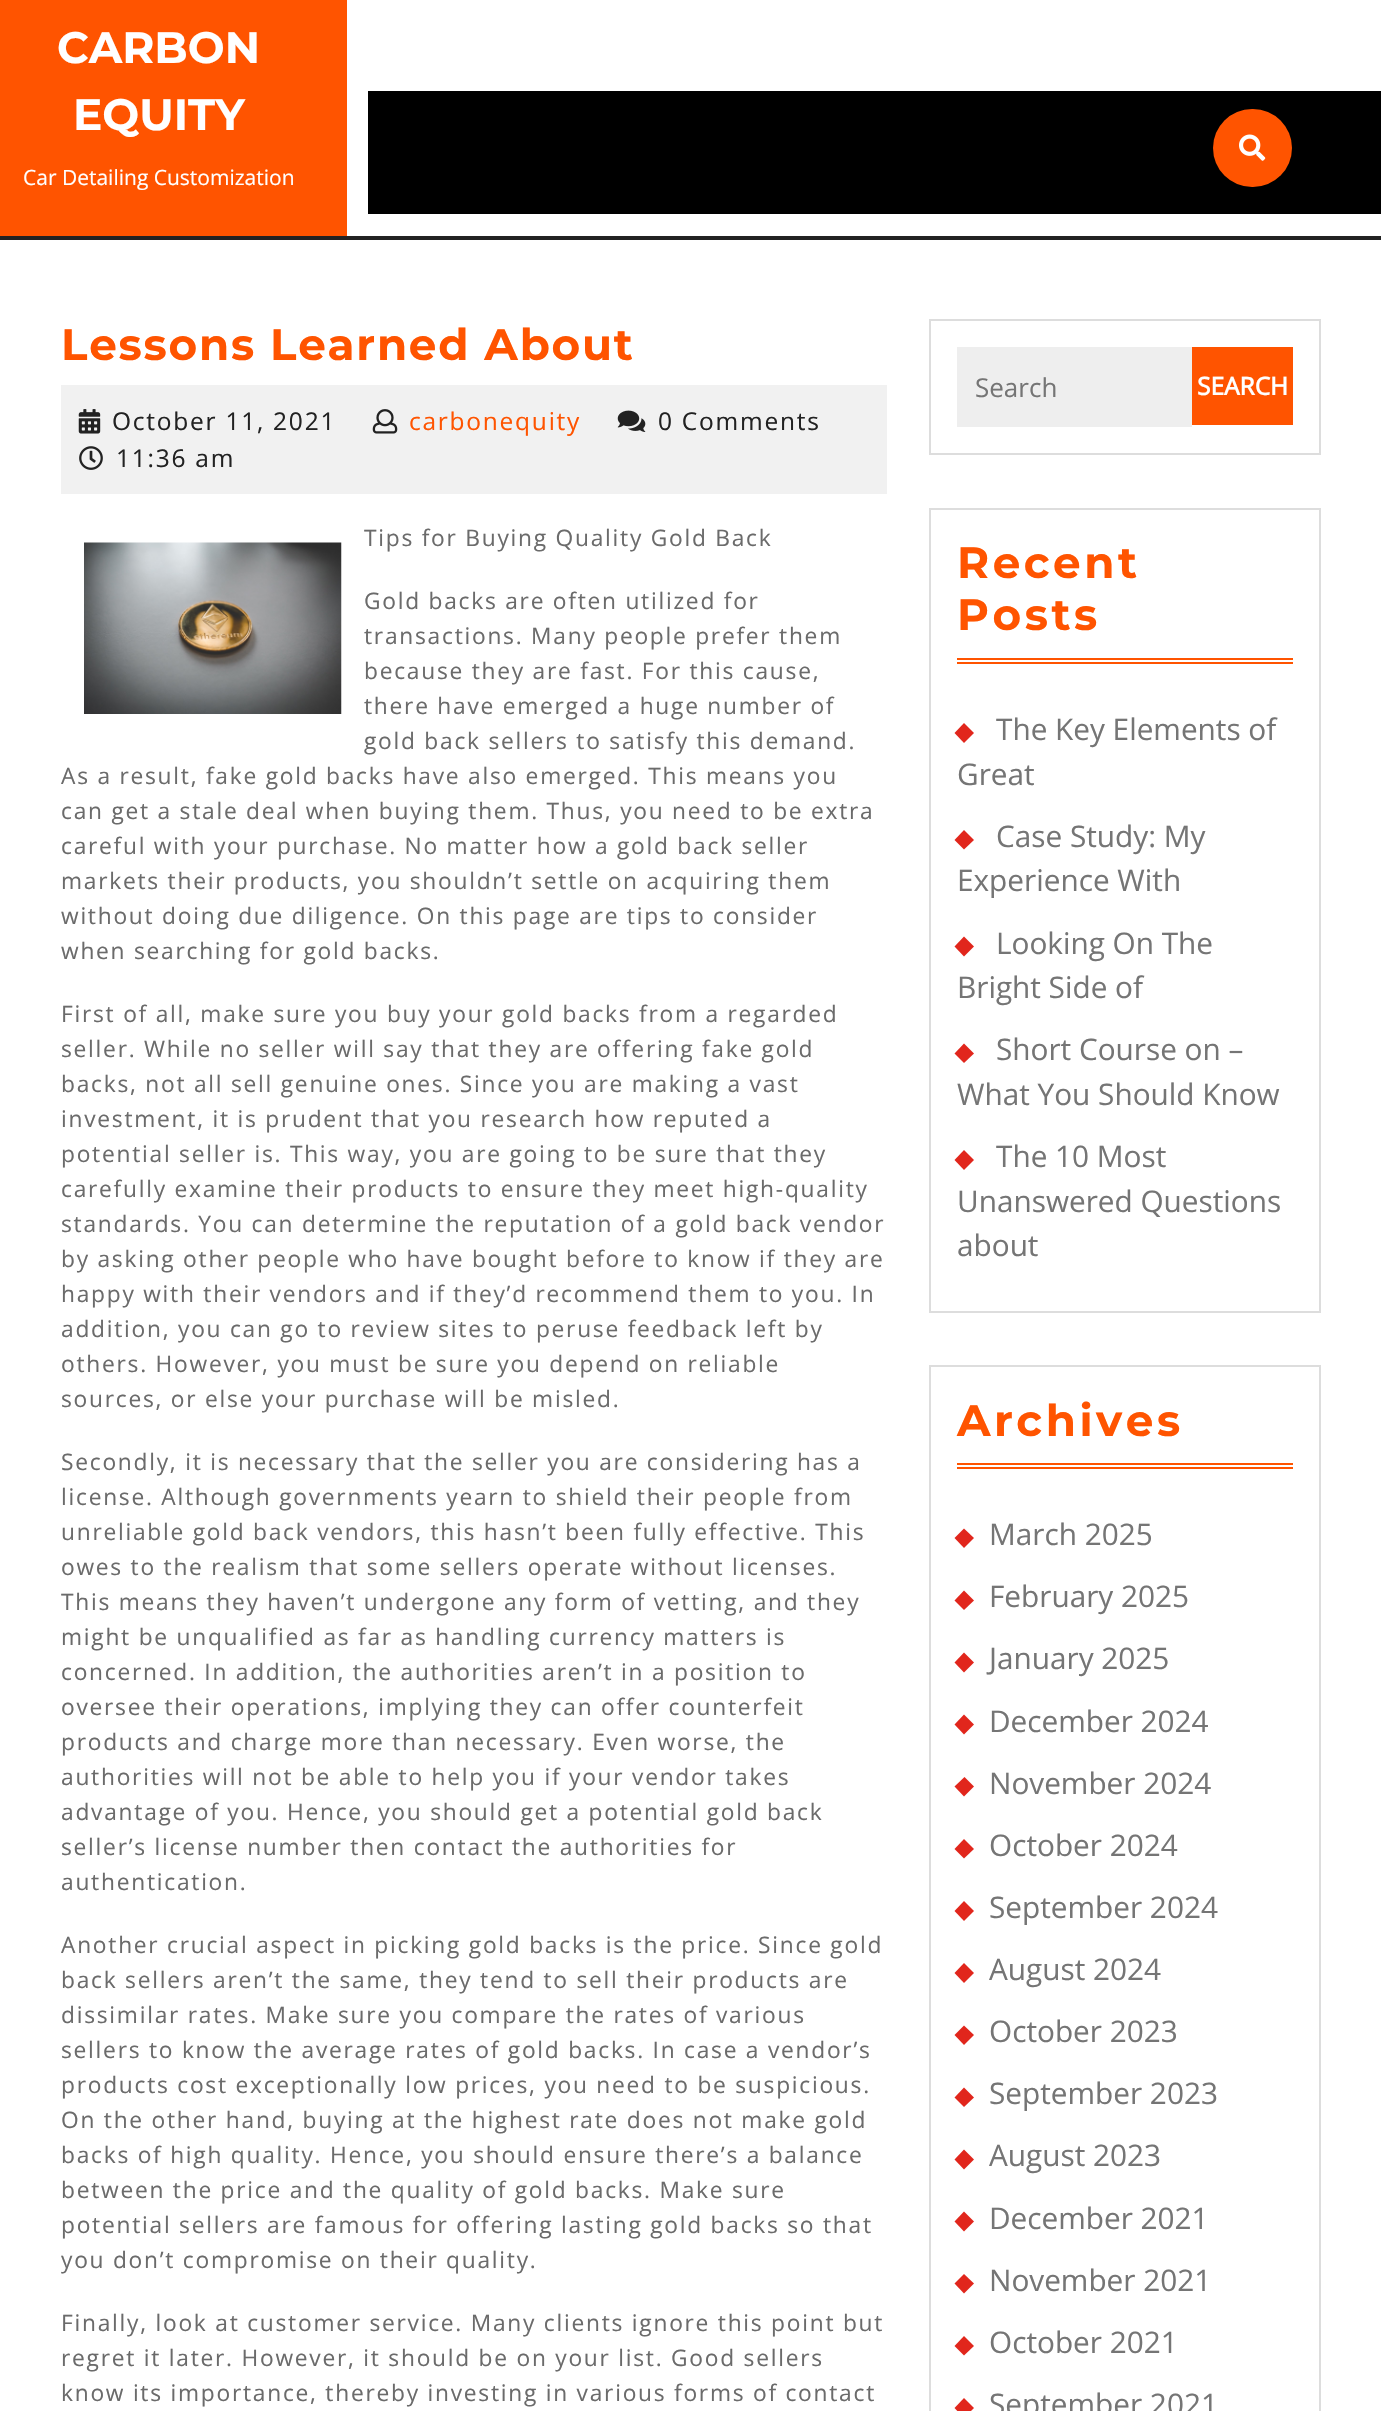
#include "include/core/SkBlurTypes.h"
#include "include/core/SkCanvas.h"
#include "include/core/SkData.h"
#include "include/core/SkFont.h"
#include "include/core/SkFontMgr.h"
#include "include/core/SkImage.h"
#include "include/core/SkMaskFilter.h"
#include "include/core/SkPaint.h"
#include "include/core/SkPathBuilder.h"
#include "include/core/SkTextBlob.h"
#include "include/effects/SkDashPathEffect.h"
#include "include/effects/SkGradientShader.h"
#include "include/utils/SkParsePath.h"

extern sk_sp<SkFontMgr> fontMgr;

void draw(SkCanvas* canvas) {
    SkPaint p;
    p.setAntiAlias(true);
    auto font = [&](const char* family, int weight, float size, bool italic = false) {
        SkFontStyle style(weight, SkFontStyle::kNormal_Width,
            italic ? SkFontStyle::kItalic_Slant : SkFontStyle::kUpright_Slant);
        SkFont result(fontMgr->matchFamilyStyle(family, style), size);
        result.setSubpixel(true);
        return result;
    };
    auto drawTracked = [&](const char* s, float x, float y, const SkFont& font, const SkPaint& ink, float letter, float word) {
        std::vector<SkGlyphID> glyphs(font.countText(s, strlen(s), SkTextEncoding::kUTF8));
        std::vector<float> xs(glyphs.size());
        font.textToGlyphs(s, strlen(s), SkTextEncoding::kUTF8, glyphs);
        font.getXPos(glyphs, xs, x);
        float extra = 0;
        for (size_t i = 0; i < glyphs.size(); i++) {
            xs[i] += extra;
            extra += letter + word * (glyphs[i] == font.unicharToGlyph(' '));
        }
        canvas->drawTextBlob(SkTextBlob::MakeFromPosHGlyphs(glyphs, xs, y, font), 0, 0, ink);
    };
    auto drawPhoto = [&](const char* path, float l, float t, float r, float b) {
        auto image = SkImages::DeferredFromEncodedData(SkData::MakeFromFileName(path));
        canvas->drawImageRect(image, SkRect::MakeLTRB(l, t, r, b), SkSamplingOptions());
    };
    canvas->clear(0xFFFFFFFF);
    p.setColor(0xFF222222);
    canvas->drawRect(SkRect::MakeLTRB(0, 236, 1381, 240), p);
    p.setColor(0xFFFF5400);
    canvas->drawRect(SkRect::MakeLTRB(0, 0, 347, 236), p);
    auto font1 = font("Montserrat", 700, 43.75f);
    p.setColor(0xFFFFFFFF);
    canvas->drawString("CARBON", 57, 63, font1, p);
    canvas->drawString("EQUITY", 73, 130, font1, p);
    auto font2 = font("Open Sans", 400, 21);
    canvas->drawString("Car Detailing Customization", 23, 185, font2, p);
    p.setColor(0xFF000000);
    canvas->drawRect(SkRect::MakeLTRB(368, 91, 1381, 214), p);
    p.setColor(0xFFFF5400);
    canvas->drawRoundRect(SkRect::MakeLTRB(1213, 109, 1292, 187), 39, 39, p);
    drawPhoto("media/1.png", 1239, 134, 1266, 161);
    drawTracked("Lessons Learned About", 61, 360, font1, p, 1.75f, 0);
    p.setColor(0xFFF1F1F1);
    canvas->drawRect(SkRect::MakeLTRB(61, 385, 887, 494), p);
    drawPhoto("media/2.png", 78, 409, 101, 434);
    auto font3 = font("Open Sans", 400, 24.5f);
    p.setColor(0xFF222222);
    drawTracked("October 11, 2021", 112, 430, font3, p, 1.75f, 0);
    drawPhoto("media/3.png", 372, 409, 398, 434);
    p.setColor(0xFFFF5400);
    drawTracked("carbonequity", 409, 430, font3, p, 1.75f, 0);
    drawPhoto("media/4.png", 617, 410, 646, 432);
    p.setColor(0xFF222222);
    drawTracked("0 Comments", 658, 430, font3, p, 1.75f, 0);
    drawPhoto("media/5.png", 79, 446, 103, 470);
    drawTracked("11:36 am", 116, 467, font3, p, 1.75f, 0);
    drawPhoto("media/6.png", 84, 542, 342, 714);
    auto font4 = font("Open Sans", 400, 22.75f);
    p.setColor(0xFF6B6B6B);
    {
        const struct { const char* s; float x, y; } items[] = {
            {"Tips for Buying Quality Gold Back", 364, 546},
            {"Gold backs are often utilized for", 364, 609},
            {"transactions. Many people prefer them", 364, 644},
            {"because they are fast. For this cause,", 364, 679},
            {"there have emerged a huge number of", 364, 714},
            {"gold back sellers to satisfy this demand.", 364, 749},
            {"As a result, fake gold backs have also emerged. This means you", 61, 784},
            {"can get a stale deal when buying them. Thus, you need to be extra", 61, 819},
            {"careful with your purchase. No matter how a gold back seller", 61, 854},
            {"markets their products, you shouldn’t settle on acquiring them", 61, 889},
            {"without doing due diligence. On this page are tips to consider", 61, 924},
            {"when searching for gold backs.", 61, 959},
            {"First of all, make sure you buy your gold backs from a regarded", 61, 1022},
            {"seller. While no seller will say that they are offering fake gold", 61, 1057},
            {"backs, not all sell genuine ones. Since you are making a vast", 61, 1092},
            {"investment, it is prudent that you research how reputed a", 61, 1127},
            {"potential seller is. This way, you are going to be sure that they", 61, 1162},
            {"carefully examine their products to ensure they meet high-quality", 61, 1197},
            {"standards. You can determine the reputation of a gold back vendor", 61, 1232},
            {"by asking other people who have bought before to know if they are", 61, 1267},
            {"happy with their vendors and if they’d recommend them to you. In", 61, 1302},
            {"addition, you can go to review sites to peruse feedback left by", 61, 1337},
            {"others. However, you must be sure you depend on reliable", 61, 1372},
            {"sources, or else your purchase will be misled.", 61, 1407},
            {"Secondly, it is necessary that the seller you are considering has a", 61, 1470},
            {"license. Although governments yearn to shield their people from", 61, 1505},
            {"unreliable gold back vendors, this hasn’t been fully effective. This", 61, 1540},
            {"owes to the realism that some sellers operate without licenses.", 61, 1575},
            {"This means they haven’t undergone any form of vetting, and they", 61, 1610},
            {"might be unqualified as far as handling currency matters is", 61, 1645},
            {"concerned. In addition, the authorities aren’t in a position to", 61, 1680},
            {"oversee their operations, implying they can offer counterfeit", 61, 1715},
            {"products and charge more than necessary. Even worse, the", 61, 1750},
            {"authorities will not be able to help you if your vendor takes", 61, 1785},
            {"advantage of you. Hence, you should get a potential gold back", 61, 1820},
            {"seller’s license number then contact the authorities for", 61, 1855},
            {"authentication.", 61, 1890},
            {"Another crucial aspect in picking gold backs is the price. Since gold", 61, 1953},
            {"back sellers aren’t the same, they tend to sell their products are", 61, 1988},
            {"dissimilar rates. Make sure you compare the rates of various", 61, 2023},
            {"sellers to know the average rates of gold backs. In case a vendor’s", 61, 2058},
            {"products cost exceptionally low prices, you need to be suspicious.", 61, 2093},
            {"On the other hand, buying at the highest rate does not make gold", 61, 2128},
            {"backs of high quality. Hence, you should ensure there’s a balance", 61, 2163},
            {"between the price and the quality of gold backs. Make sure", 61, 2198},
            {"potential sellers are famous for offering lasting gold backs so that", 61, 2233},
            {"you don’t compromise on their quality.", 61, 2268},
            {"Finally, look at customer service. Many clients ignore this point but", 61, 2331},
            {"regret it later. However, it should be on your list. Good sellers", 61, 2366},
            {"know its importance, thereby investing in various forms of contact", 61, 2401},
        };
        for (auto [s, x, y] : items) {
            drawTracked(s, x, y, font4, p, 1.75f, 0);
        }
    }
    p.setStyle(SkPaint::kStroke_Style);
    p.setStrokeWidth(2);
    p.setColor(0xFFDDDDDD);
    canvas->drawRect(SkRect::MakeLTRB(930, 320, 1320, 454), p);
    p.setStyle(SkPaint::kFill_Style);
    p.setColor(0xFFEEEEEE);
    canvas->drawRect(SkRect::MakeLTRB(957, 347, 1192, 427), p);
    auto font5 = font("Open Sans", 400, 26);
    p.setColor(0xFF757575);
    canvas->drawString("Search", 975, 397, font5, p);
    p.setColor(0xFFFF5400);
    canvas->drawRect(SkRect::MakeLTRB(1192, 347, 1293, 425), p);
    auto font6 = font("Open Sans", 700, 24.5f);
    p.setColor(0xFFFFFFFF);
    canvas->drawString("SEARCH", 1197, 395, font6, p);
    p.setStyle(SkPaint::kStroke_Style);
    p.setColor(0xFFDDDDDD);
    canvas->drawRect(SkRect::MakeLTRB(930, 509, 1320, 1312), p);
    p.setStyle(SkPaint::kFill_Style);
    p.setColor(0xFFFF5400);
    canvas->drawRect(SkRect::MakeLTRB(957, 658, 1293, 660), p);
    canvas->drawRect(SkRect::MakeLTRB(957, 662, 1293, 664), p);
    drawTracked("Recent", 957, 578, font1, p, 3.5f, 0);
    drawTracked("Posts", 957, 630, font1, p, 3.5f, 0);
    p.setColor(0xFFE1261C);
    canvas->drawPath(SkPathBuilder().moveTo(954.5f, 733).lineTo(964, 723).lineTo(974, 733).lineTo(964, 743).close().detach(), p);
    auto font7 = font("Open Sans", 400, 29.75f);
    p.setColor(0xFF757575);
    canvas->drawString("The Key Elements of", 996, 740, font7, p);
    canvas->drawString("Great", 957, 785, font7, p);
    p.setColor(0xFFE1261C);
    canvas->drawPath(SkPathBuilder().moveTo(954.5f, 840).lineTo(964, 830).lineTo(974, 840).lineTo(964, 849.5f).close().detach(), p);
    p.setColor(0xFF757575);
    canvas->drawString("Case Study: My", 996, 847, font7, p);
    canvas->drawString("Experience With", 957, 891, font7, p);
    p.setColor(0xFFE1261C);
    canvas->drawPath(SkPathBuilder().moveTo(954.5f, 946.5f).lineTo(964, 936.5f).lineTo(974, 946.5f).lineTo(964, 956.5f).close().detach(), p);
    p.setColor(0xFF757575);
    canvas->drawString("Looking On The", 996, 954, font7, p);
    canvas->drawString("Bright Side of", 957, 998, font7, p);
    p.setColor(0xFFE1261C);
    canvas->drawPath(SkPathBuilder().moveTo(954.5f, 1053.5f).lineTo(964, 1043.5f).lineTo(974, 1053.5f).lineTo(964, 1063).close().detach(), p);
    p.setColor(0xFF757575);
    canvas->drawString("Short Course on –", 996, 1060, font7, p);
    canvas->drawString("What You Should Know", 957, 1105, font7, p);
    p.setColor(0xFFE1261C);
    canvas->drawPath(SkPathBuilder().moveTo(954.5f, 1160).lineTo(964, 1150).lineTo(974, 1160).lineTo(964, 1170).close().detach(), p);
    p.setColor(0xFF757575);
    {
        const struct { const char* s; float x, y; } items[] = {
            {"The 10 Most", 996, 1167},
            {"Unanswered Questions", 957, 1212},
            {"about", 957, 1256},
        };
        for (auto [s, x, y] : items) {
            canvas->drawString(s, x, y, font7, p);
        }
    }
    p.setStyle(SkPaint::kStroke_Style);
    p.setColor(0xFFDDDDDD);
    canvas->drawRect(SkRect::MakeLTRB(930, 1366, 1320, 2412), p);
    p.setStyle(SkPaint::kFill_Style);
    p.setColor(0xFFFF5400);
    canvas->drawRect(SkRect::MakeLTRB(957, 1463, 1293, 1465), p);
    canvas->drawRect(SkRect::MakeLTRB(957, 1467, 1293, 1469), p);
    drawTracked("Archives", 957, 1436, font1, p, 3.5f, 0);
    p.setColor(0xFFE1261C);
    canvas->drawPath(SkPathBuilder().moveTo(954.5f, 1538).lineTo(964, 1528.5f).lineTo(974, 1538).lineTo(964, 1548).close().detach(), p);
    p.setColor(0xFF757575);
    canvas->drawString("March 2025", 989, 1545, font7, p);
    p.setColor(0xFFE1261C);
    canvas->drawPath(SkPathBuilder().moveTo(954.5f, 1600.5f).lineTo(964, 1590.5f).lineTo(974, 1600.5f).lineTo(964, 1610).close().detach(), p);
    p.setColor(0xFF757575);
    canvas->drawString("February 2025", 989, 1607, font7, p);
    p.setColor(0xFFE1261C);
    canvas->drawPath(SkPathBuilder().moveTo(954.5f, 1662.5f).lineTo(964, 1652.5f).lineTo(974, 1662.5f).lineTo(964, 1672.5f).close().detach(), p);
    p.setColor(0xFF757575);
    canvas->drawString("January 2025", 989, 1669, font7, p);
    p.setColor(0xFFE1261C);
    canvas->drawPath(SkPathBuilder().moveTo(954.5f, 1724.5f).lineTo(964, 1714.5f).lineTo(974, 1724.5f).lineTo(964, 1734.5f).close().detach(), p);
    p.setColor(0xFF757575);
    canvas->drawString("December 2024", 989, 1732, font7, p);
    p.setColor(0xFFE1261C);
    canvas->drawPath(SkPathBuilder().moveTo(954.5f, 1786.5f).lineTo(964.5f, 1777).lineTo(974, 1786.5f).lineTo(964, 1796.5f).close().detach(), p);
    p.setColor(0xFF757575);
    canvas->drawString("November 2024", 989, 1794, font7, p);
    p.setColor(0xFFE1261C);
    canvas->drawPath(SkPathBuilder().moveTo(954.5f, 1849).lineTo(964, 1839).lineTo(974, 1849).lineTo(964, 1858.5f).close().detach(), p);
    p.setColor(0xFF757575);
    canvas->drawString("October 2024", 989, 1856, font7, p);
    p.setColor(0xFFE1261C);
    canvas->drawPath(SkPathBuilder().moveTo(954.5f, 1911).lineTo(964, 1901).lineTo(974, 1911).lineTo(964, 1921).close().detach(), p);
    p.setColor(0xFF757575);
    canvas->drawString("September 2024", 989, 1918, font7, p);
    p.setColor(0xFFE1261C);
    canvas->drawPath(SkPathBuilder().moveTo(954.5f, 1973).lineTo(964, 1963).lineTo(974, 1973).lineTo(964, 1983).close().detach(), p);
    p.setColor(0xFF757575);
    canvas->drawString("August 2024", 989, 1980, font7, p);
    p.setColor(0xFFE1261C);
    canvas->drawPath(SkPathBuilder().moveTo(954.5f, 2035).lineTo(964, 2025.5f).lineTo(974, 2035).lineTo(964, 2045).close().detach(), p);
    p.setColor(0xFF757575);
    canvas->drawString("October 2023", 989, 2042, font7, p);
    p.setColor(0xFFE1261C);
    canvas->drawPath(SkPathBuilder().moveTo(954.5f, 2097.5f).lineTo(964, 2087.5f).lineTo(974, 2097.5f).lineTo(964, 2107).close().detach(), p);
    p.setColor(0xFF757575);
    canvas->drawString("September 2023", 989, 2104, font7, p);
    p.setColor(0xFFE1261C);
    canvas->drawPath(SkPathBuilder().moveTo(954.5f, 2159.5f).lineTo(964, 2149.5f).lineTo(974, 2159.5f).lineTo(964, 2169.5f).close().detach(), p);
    p.setColor(0xFF757575);
    canvas->drawString("August 2023", 989, 2166, font7, p);
    p.setColor(0xFFE1261C);
    canvas->drawPath(SkPathBuilder().moveTo(954.5f, 2221.5f).lineTo(964, 2211.5f).lineTo(974, 2221.5f).lineTo(964, 2231.5f).close().detach(), p);
    p.setColor(0xFF757575);
    canvas->drawString("December 2021", 989, 2229, font7, p);
    p.setColor(0xFFE1261C);
    canvas->drawPath(SkPathBuilder().moveTo(954.5f, 2283.5f).lineTo(964, 2274).lineTo(974, 2283.5f).lineTo(964, 2293.5f).close().detach(), p);
    p.setColor(0xFF757575);
    canvas->drawString("November 2021", 989, 2291, font7, p);
    p.setColor(0xFFE1261C);
    canvas->drawPath(SkPathBuilder().moveTo(954.5f, 2346).lineTo(964, 2336).lineTo(974, 2346).lineTo(964, 2355.5f).close().detach(), p);
    p.setColor(0xFF757575);
    canvas->drawString("October 2021", 989, 2353, font7, p);
    p.setColor(0xFFE1261C);
    canvas->drawPath(SkPathBuilder().moveTo(954.5f, 2408).lineTo(964, 2398).lineTo(974, 2408).lineTo(964, 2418).close().detach(), p);
    p.setColor(0xFF757575);
    canvas->drawString("September 2021", 989, 2415, font7, p);
}
